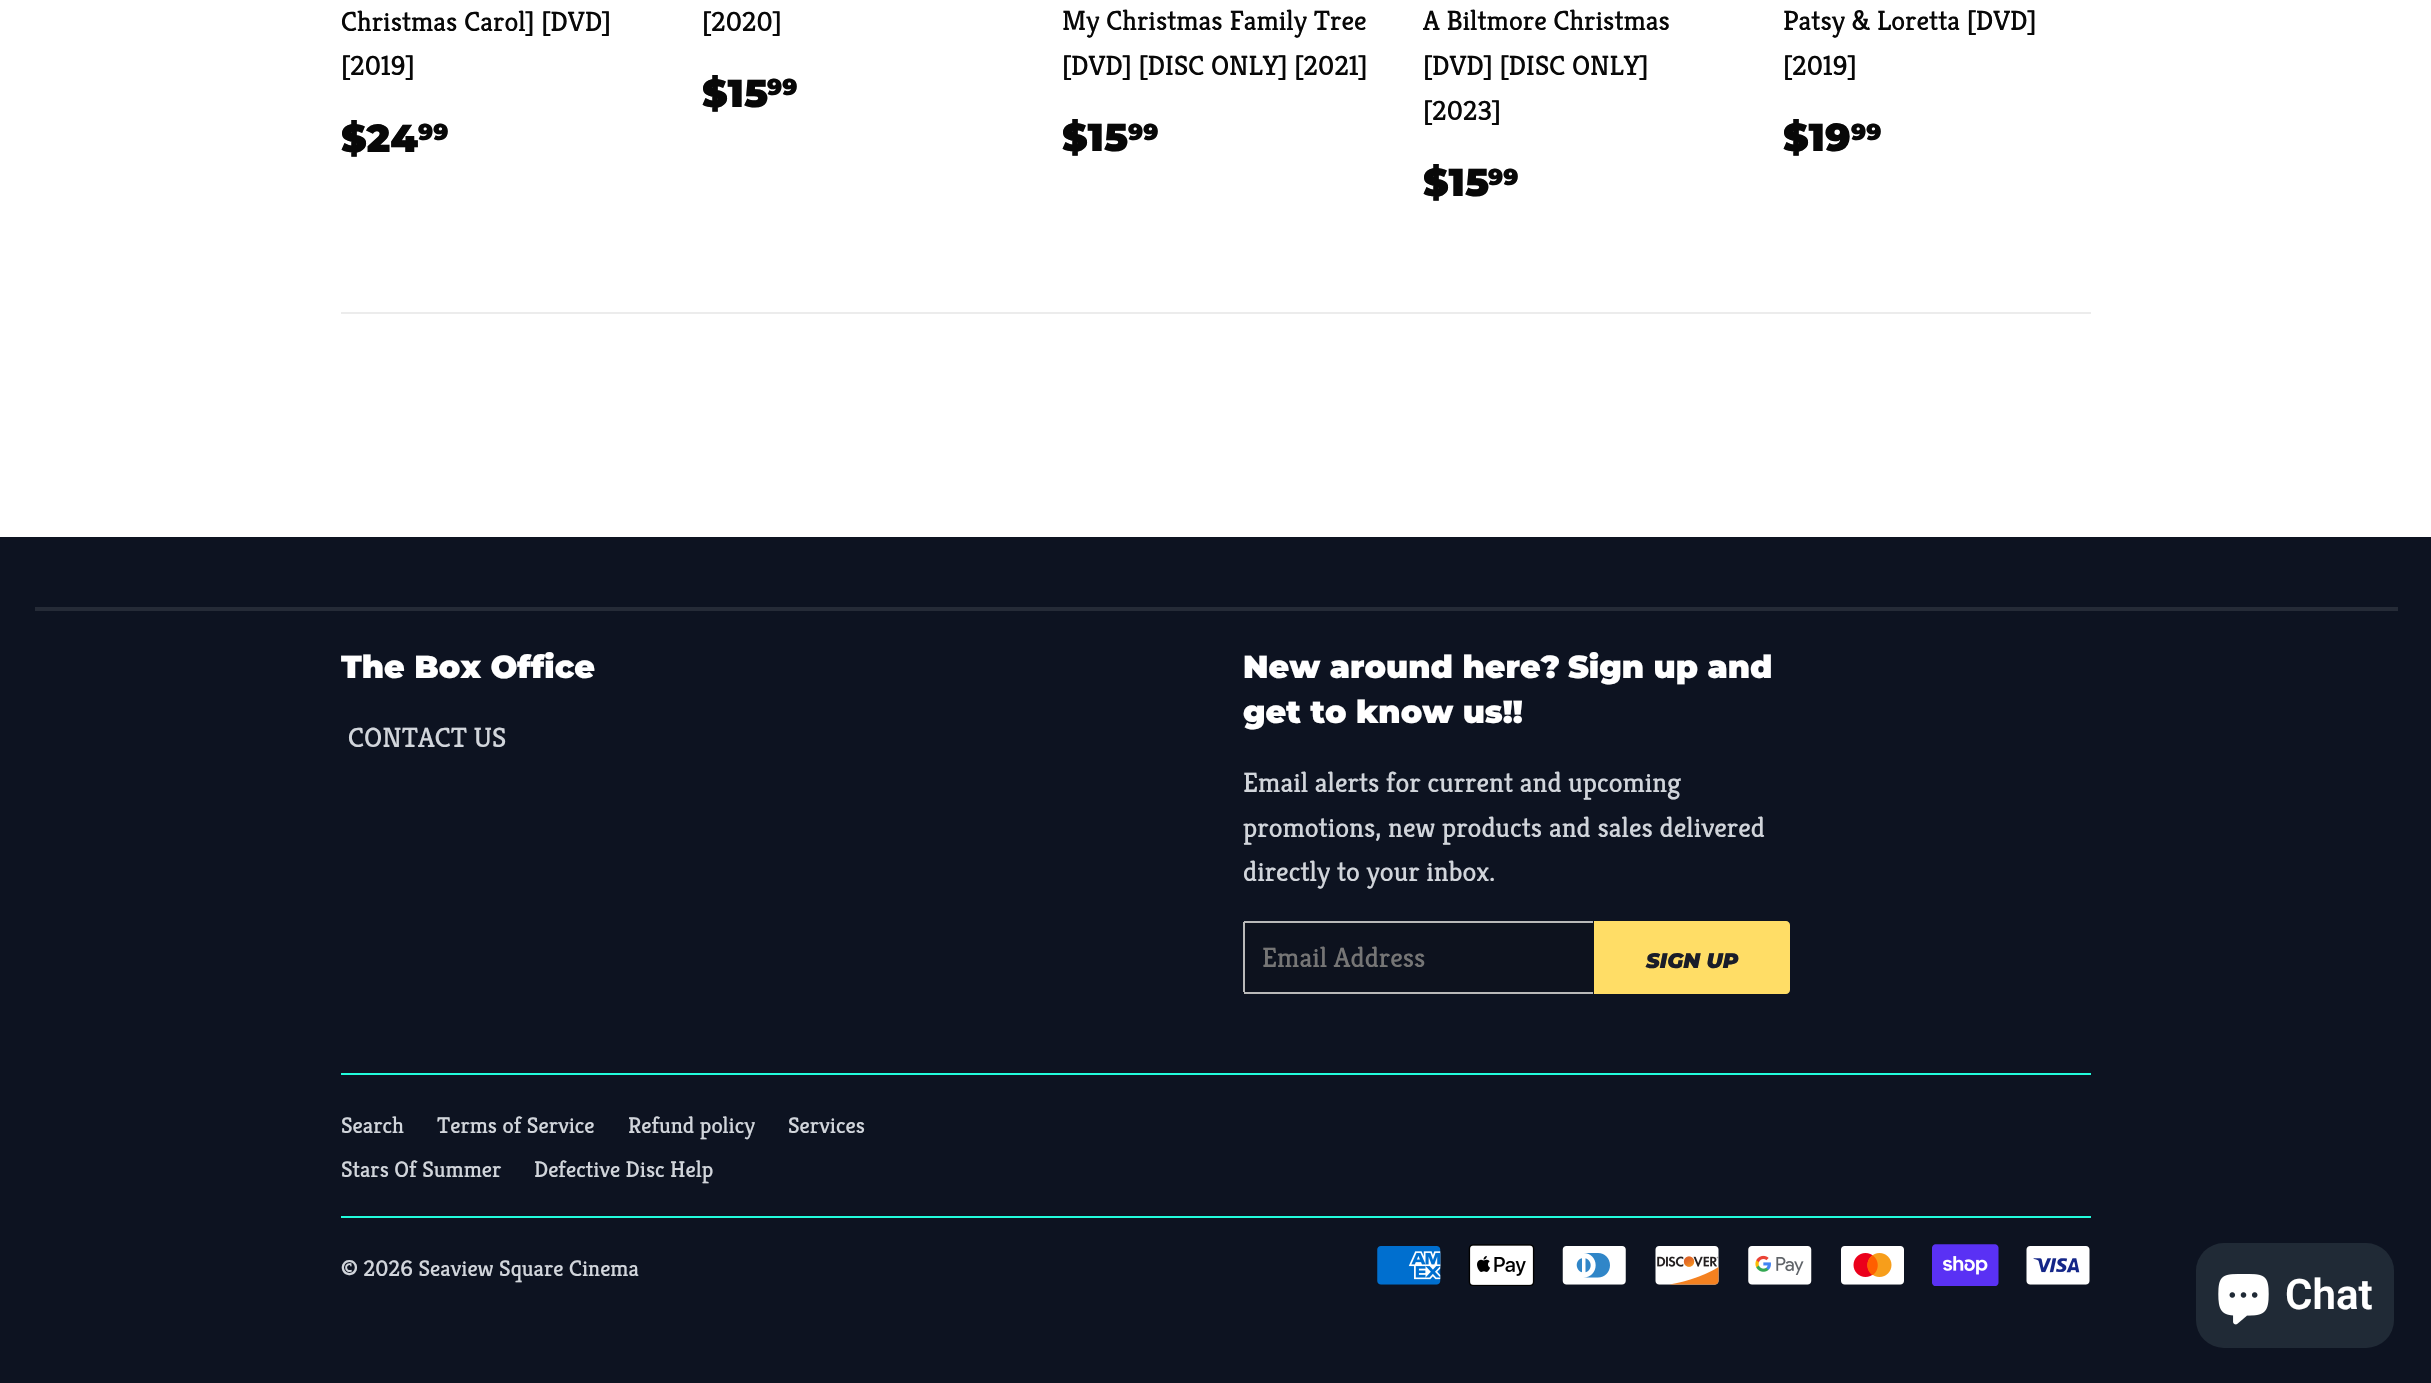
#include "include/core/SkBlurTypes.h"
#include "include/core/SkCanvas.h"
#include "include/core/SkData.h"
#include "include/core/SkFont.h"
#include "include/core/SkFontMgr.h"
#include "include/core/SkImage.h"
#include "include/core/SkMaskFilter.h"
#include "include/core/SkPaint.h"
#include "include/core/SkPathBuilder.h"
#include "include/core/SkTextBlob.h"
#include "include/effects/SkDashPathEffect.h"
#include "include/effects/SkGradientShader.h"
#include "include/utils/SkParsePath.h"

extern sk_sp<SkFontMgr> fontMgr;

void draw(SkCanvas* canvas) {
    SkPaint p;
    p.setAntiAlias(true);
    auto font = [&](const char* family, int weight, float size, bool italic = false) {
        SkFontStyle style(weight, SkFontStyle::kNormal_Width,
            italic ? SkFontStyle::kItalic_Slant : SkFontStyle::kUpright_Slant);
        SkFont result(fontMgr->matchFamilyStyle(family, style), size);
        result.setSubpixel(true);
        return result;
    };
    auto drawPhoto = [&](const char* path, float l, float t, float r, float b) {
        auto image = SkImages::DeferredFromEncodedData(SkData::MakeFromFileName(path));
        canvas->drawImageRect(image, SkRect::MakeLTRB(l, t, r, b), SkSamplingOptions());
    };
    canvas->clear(0xFFFFFFFF);
    auto font1 = font("Kreon", 400, 28);
    p.setColor(0xFF080808);
    canvas->drawString("Christmas Carol] [DVD]", 341, 31, font1, p);
    canvas->drawString("[2019]", 341, 75, font1, p);
    auto font2 = font("Montserrat", 900, 39);
    canvas->drawString("$24", 341, 152, font2, p);
    auto font3 = font("Montserrat", 900, 23);
    canvas->drawString("99", 418, 140, font3, p);
    canvas->drawString("[2020]", 702, 31, font1, p);
    canvas->drawString("$15", 702, 107, font2, p);
    canvas->drawString("99", 767, 95, font3, p);
    canvas->drawString("My Christmas Family Tree", 1062, 30, font1, p);
    canvas->drawString("[DVD] [DISC ONLY] [2021]", 1062, 75, font1, p);
    canvas->drawString("$15", 1062, 151, font2, p);
    canvas->drawString("99", 1128, 140, font3, p);
    {
        const struct { const char* s; float x, y; } items[] = {
            {"A Biltmore Christmas", 1423, 30},
            {"[DVD] [DISC ONLY]", 1423, 75},
            {"[2023]", 1423, 120},
        };
        for (auto [s, x, y] : items) {
            canvas->drawString(s, x, y, font1, p);
        }
    }
    canvas->drawString("$15", 1423, 196, font2, p);
    canvas->drawString("99", 1488, 185, font3, p);
    canvas->drawString("Patsy & Loretta [DVD]", 1783, 30, font1, p);
    canvas->drawString("[2019]", 1783, 75, font1, p);
    canvas->drawString("$19", 1783, 151, font2, p);
    canvas->drawString("99", 1851, 140, font3, p);
    {
        const struct { float l, t, r, b; SkColor color; } items[] = {
            {341, 312, 2091, 314, 0xFFECECEC},
            {0, 537, 2431, 1383, 0xFF0D1321},
            {35, 607, 2398, 611, 0xFF252B37},
        };
        for (auto [l, t, r, b, color] : items) {
            p.setColor(color);
            canvas->drawRect(SkRect::MakeLTRB(l, t, r, b), p);
        }
    }
    auto font4 = font("Montserrat", 900, 31.75f);
    p.setColor(0xFFFFFFFF);
    canvas->drawString("The Box Office", 341, 678, font4, p);
    p.setColor(0xFFD1D5DB);
    canvas->drawString("CONTACT US", 348, 747, font1, p);
    p.setColor(0xFFFFFFFF);
    {
        const struct { const char* s; float x, y; } items[] = {
            {"New around here?", 1243, 678},
            {"Sign up and", 1568, 678},
            {"get to know us!!", 1243, 723},
        };
        for (auto [s, x, y] : items) {
            canvas->drawString(s, x, y, font4, p);
        }
    }
    p.setColor(0xFFD1D5DB);
    {
        const struct { const char* s; float x, y; } items[] = {
            {"Email alerts for current and upcoming", 1243, 792},
            {"promotions, new products and sales delivered", 1243, 837},
            {"directly to your inbox.", 1243, 881},
        };
        for (auto [s, x, y] : items) {
            canvas->drawString(s, x, y, font1, p);
        }
    }
    p.setColor(0xFF0D121E);
    canvas->drawRoundRect(SkRect::MakeLTRB(1243, 921, 1594, 994), 4, 4, p);
    {
        const struct { float l, t, r, b; SkColor color; } items[] = {
            {1244, 921, 1593, 923, 0xFFB9B9B9},
            {1244, 992, 1593, 994, 0xFFB9B9B9},
            {1243, 922, 1245, 992, 0xFFB9B9B9},
        };
        for (auto [l, t, r, b, color] : items) {
            p.setColor(color);
            canvas->drawRect(SkRect::MakeLTRB(l, t, r, b), p);
        }
    }
    p.setColor(0xFF757575);
    canvas->drawString("Email Address", 1262, 967, font1, p);
    p.setColor(0xFFFFDD66);
    canvas->drawPath(SkPathBuilder().moveTo(1596, 923).lineTo(1786, 923).cubicTo(1787, 923, 1788, 924, 1788, 925).lineTo(1788, 990).cubicTo(1788, 991, 1787, 992, 1786, 992).lineTo(1596, 992).close().detach(), p);
    p.setStyle(SkPaint::kStroke_Style);
    p.setStrokeWidth(4);
    canvas->drawPath(SkPathBuilder().moveTo(1596, 923).lineTo(1786, 923).cubicTo(1787, 923, 1788, 924, 1788, 925).lineTo(1788, 990).cubicTo(1788, 991, 1787, 992, 1786, 992).lineTo(1596, 992).close().detach(), p);
    auto font5 = font("Montserrat", 900, 21, true);
    p.setStyle(SkPaint::kFill_Style);
    p.setColor(0xFF1A1D29);
    canvas->drawString("SIGN UP", 1646, 968, font5, p);
    p.setColor(0xFF22FCDC);
    canvas->drawRect(SkRect::MakeLTRB(341, 1073, 2091, 1075), p);
    auto font6 = font("Kreon", 400, 22.75f);
    p.setColor(0xFFD1D5DB);
    {
        const struct { const char* s; float x, y; } items[] = {
            {"Search", 341, 1133},
            {"Terms of Service", 437, 1133},
            {"Refund policy", 628, 1133},
            {"Services", 788, 1133},
            {"Stars Of Summer", 341, 1177},
            {"Defective Disc Help", 534, 1177},
        };
        for (auto [s, x, y] : items) {
            canvas->drawString(s, x, y, font6, p);
        }
    }
    p.setColor(0xFF22FCDC);
    canvas->drawRect(SkRect::MakeLTRB(341, 1216, 2091, 1218), p);
    p.setColor(0xFFD1D5DB);
    canvas->drawString("© 2026 Seaview Square Cinema", 341, 1276, font6, p);
    drawPhoto("media/1.png", 1377, 1246, 1441, 1285);
    drawPhoto("media/2.png", 1468, 1244, 1535, 1286);
    drawPhoto("media/3.png", 1562, 1246, 1626, 1285);
    drawPhoto("media/4.png", 1655, 1246, 1719, 1285);
    drawPhoto("media/5.png", 1748, 1246, 1812, 1285);
    drawPhoto("media/6.png", 1841, 1246, 1904, 1285);
    drawPhoto("media/7.png", 1932, 1244, 1999, 1286);
    drawPhoto("media/8.png", 2026, 1246, 2090, 1285);
    p.setColor(0xFF202A36);
    canvas->drawRoundRect(SkRect::MakeLTRB(2196, 1243, 2394, 1348), 28, 28, p);
    drawPhoto("media/9.png", 2218, 1274, 2269, 1325);
    auto font7 = font("Roboto", 600, 42);
    p.setColor(0xFFFFFFFF);
    canvas->drawString("Chat", 2285, 1309, font7, p);
}
